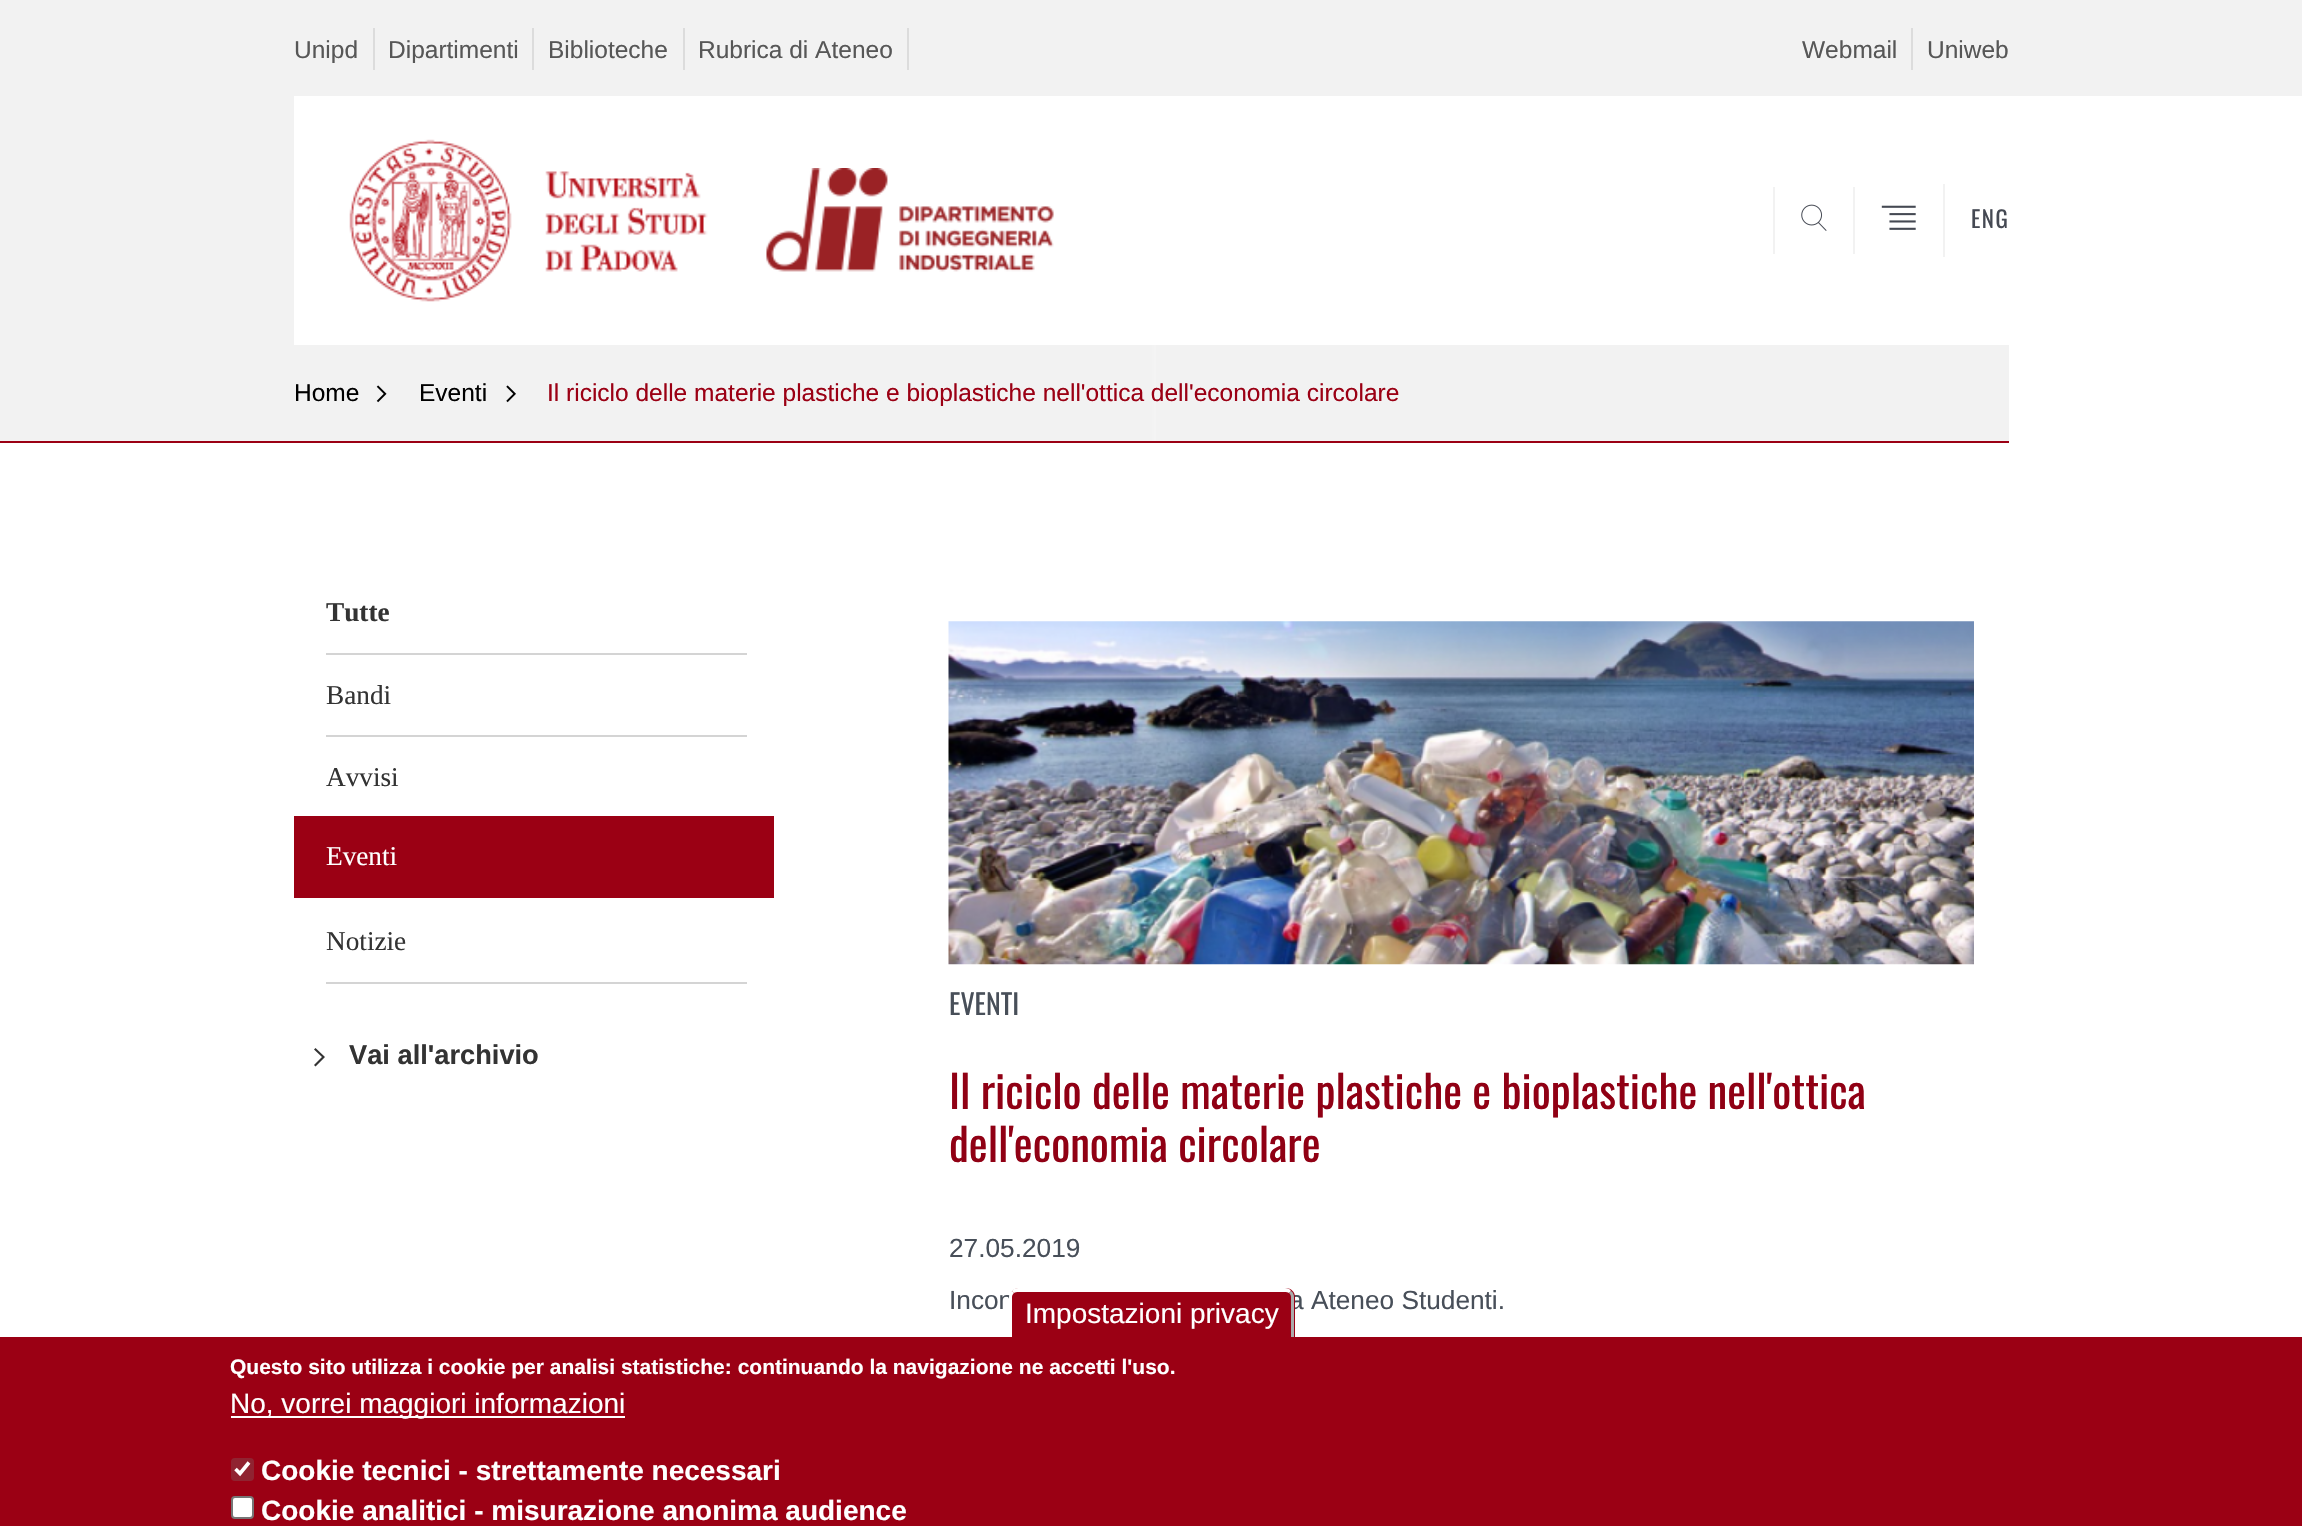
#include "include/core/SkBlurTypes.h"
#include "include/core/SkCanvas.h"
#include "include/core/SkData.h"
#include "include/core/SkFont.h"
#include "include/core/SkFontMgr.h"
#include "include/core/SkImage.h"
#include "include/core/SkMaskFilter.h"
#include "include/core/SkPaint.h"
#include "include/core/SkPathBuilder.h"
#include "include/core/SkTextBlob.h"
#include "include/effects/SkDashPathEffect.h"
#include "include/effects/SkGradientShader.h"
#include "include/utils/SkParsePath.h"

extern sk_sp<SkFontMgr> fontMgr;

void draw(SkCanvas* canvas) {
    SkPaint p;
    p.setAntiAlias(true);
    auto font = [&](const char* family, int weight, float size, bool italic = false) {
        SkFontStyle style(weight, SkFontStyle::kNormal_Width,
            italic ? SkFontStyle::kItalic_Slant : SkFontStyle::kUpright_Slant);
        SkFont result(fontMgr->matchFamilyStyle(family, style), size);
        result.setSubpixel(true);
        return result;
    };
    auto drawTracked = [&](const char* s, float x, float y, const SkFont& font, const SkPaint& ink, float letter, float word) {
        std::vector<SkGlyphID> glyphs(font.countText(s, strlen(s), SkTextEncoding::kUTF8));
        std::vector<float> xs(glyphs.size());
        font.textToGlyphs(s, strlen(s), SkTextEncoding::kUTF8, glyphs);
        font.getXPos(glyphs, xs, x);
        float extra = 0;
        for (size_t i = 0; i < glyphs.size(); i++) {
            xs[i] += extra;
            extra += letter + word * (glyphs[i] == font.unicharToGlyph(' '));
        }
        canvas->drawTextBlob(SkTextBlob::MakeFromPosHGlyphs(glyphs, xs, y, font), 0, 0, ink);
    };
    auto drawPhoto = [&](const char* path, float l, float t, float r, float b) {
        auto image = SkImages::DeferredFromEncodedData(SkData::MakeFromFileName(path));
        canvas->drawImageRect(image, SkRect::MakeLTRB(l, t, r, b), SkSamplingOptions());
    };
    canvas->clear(0xFFFFFFFF);
    p.setColor(0xFFF2F2F2);
    canvas->drawRect(SkRect::MakeLTRB(0, 0, 2302, 345), p);
    p.setColor(0xFFDCDCDC);
    canvas->drawRect(SkRect::MakeLTRB(373, 28, 375, 70), p);
    auto font1 = font("Liberation Sans", 400, 24.5f);
    p.setColor(0xFF575757);
    canvas->drawString("Unipd", 294, 58, font1, p);
    p.setColor(0xFFDCDCDC);
    canvas->drawRect(SkRect::MakeLTRB(532, 28, 534, 70), p);
    p.setColor(0xFF575757);
    canvas->drawString("Dipartimenti", 388, 58, font1, p);
    p.setColor(0xFFDCDCDC);
    canvas->drawRect(SkRect::MakeLTRB(683, 28, 685, 70), p);
    p.setColor(0xFF575757);
    canvas->drawString("Biblioteche", 548, 58, font1, p);
    p.setColor(0xFFDCDCDC);
    canvas->drawRect(SkRect::MakeLTRB(907, 28, 909, 70), p);
    p.setColor(0xFF575757);
    canvas->drawString("Rubrica di Ateneo", 698, 58, font1, p);
    p.setColor(0xFFDCDCDC);
    canvas->drawRect(SkRect::MakeLTRB(1911, 28, 1913, 70), p);
    p.setColor(0xFF575757);
    canvas->drawString("Webmail", 1802, 58, font1, p);
    canvas->drawString("Uniweb", 1927, 58, font1, p);
    {
        const SkColor colors[] = {0x009B0014, 0x00FFFFFF, 0xFFFFFFFF, 0xFFFFFFFF};
        const float stops[] = {0, 0.5f, 0.51f, 1};
        const SkPoint ends[] = {{0, 221}, {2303, 220}};
        p.setShader(SkGradientShader::MakeLinear(ends, colors, stops, 4, SkTileMode::kClamp));
        p.setAlpha(255);
    }
    canvas->drawRect(SkRect::MakeLTRB(2009, 96, 2302, 345), p);
    p.setShader(nullptr);
    p.setColor(0xFFFFFFFF);
    canvas->drawRect(SkRect::MakeLTRB(294, 96, 2009, 345), p);
    drawPhoto("media/1.png", 349, 139, 708, 302);
    drawPhoto("media/2.png", 766, 168, 1054, 272);
    p.setColor(0xFFF2F2F2);
    canvas->drawRect(SkRect::MakeLTRB(1773, 187, 1775, 254), p);
    drawPhoto("media/3.png", 1801, 204, 1827, 231);
    canvas->drawRect(SkRect::MakeLTRB(1853, 187, 1855, 254), p);
    drawPhoto("media/4.png", 1881, 205, 1916, 230);
    canvas->drawRect(SkRect::MakeLTRB(1943, 184, 1945, 257), p);
    auto font2 = font("Oswald", 400, 23);
    p.setColor(0xFF454953);
    drawTracked("ENG", 1971, 228, font2, p, 1.5f, 0);
    {
        const SkColor colors[] = {0xFFF2F2F2, 0xFFF2F2F2, 0xFFFFFFFF, 0xFFFFFFFF};
        const float stops[] = {0, 0.5f, 0.51f, 1};
        const SkPoint ends[] = {{0, 393}, {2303, 393}};
        p.setShader(SkGradientShader::MakeLinear(ends, colors, stops, 4, SkTileMode::kClamp));
        p.setAlpha(255);
    }
    canvas->drawRect(SkRect::MakeLTRB(0, 345, 1170, 441), p);
    p.setShader(nullptr);
    p.setColor(0xFFF2F2F2);
    canvas->drawRect(SkRect::MakeLTRB(1156, 345, 2009, 441), p);
    p.setColor(0xFF000000);
    canvas->drawString("Home", 294, 401, font1, p);
    drawPhoto("media/5.png", 376, 385, 387, 403);
    canvas->drawString("Eventi", 419, 401, font1, p);
    drawPhoto("media/6.png", 506, 385, 516, 403);
    p.setColor(0xFF9B0014);
    canvas->drawString("Il riciclo delle materie plastiche e bioplastiche nell'ottica dell'economia circolare", 547, 401, font1, p);
    {
        const SkColor colors[] = {0xFF9B0014, 0xFF9B0014, 0xFFFFFFFF, 0xFFFFFFFF};
        const float stops[] = {0, 0.5f, 0.51f, 1};
        const SkPoint ends[] = {{0, 442}, {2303, 442}};
        p.setShader(SkGradientShader::MakeLinear(ends, colors, stops, 4, SkTileMode::kClamp));
        p.setAlpha(255);
    }
    canvas->drawRect(SkRect::MakeLTRB(0, 441, 1174, 443), p);
    p.setShader(nullptr);
    p.setColor(0xFF9B0014);
    canvas->drawRect(SkRect::MakeLTRB(1152, 441, 2009, 443), p);
    p.setColor(0xFFD4D4D4);
    canvas->drawRect(SkRect::MakeLTRB(326, 653, 747, 655), p);
    auto font3 = font("Liberation Serif", 700, 27.25f);
    p.setColor(0xFF333333);
    canvas->drawString("Tutte", 326, 621, font3, p);
    p.setColor(0xFFD4D4D4);
    canvas->drawRect(SkRect::MakeLTRB(326, 735, 747, 737), p);
    auto font4 = font("Liberation Serif", 400, 27.25f);
    p.setColor(0xFF333333);
    canvas->drawString("Bandi", 326, 704, font4, p);
    canvas->drawString("Avvisi", 326, 786, font4, p);
    p.setColor(0xFF9B0014);
    canvas->drawRect(SkRect::MakeLTRB(294, 816, 774, 898), p);
    p.setColor(0xFFFFFFFF);
    canvas->drawString("Eventi", 326, 865, font4, p);
    p.setColor(0xFFD4D4D4);
    canvas->drawRect(SkRect::MakeLTRB(326, 982, 747, 984), p);
    p.setColor(0xFF333333);
    canvas->drawString("Notizie", 326, 950, font4, p);
    canvas->drawPath(SkPathBuilder().moveTo(314, 1049.5f).lineTo(322, 1057).lineTo(314, 1065).lineTo(315.5f, 1066.5f).lineTo(325, 1057).lineTo(315.5f, 1048).close().detach(), p);
    auto font5 = font("Liberation Sans", 700, 27.25f);
    canvas->drawString("Vai all'archivio", 349, 1064, font5, p);
    drawPhoto("media/7.png", 948, 621, 1974, 965);
    auto font6 = font("Oswald", 400, 28);
    p.setColor(0xFF484F59);
    canvas->drawString("EVENTI", 949, 1015, font6, p);
    auto font7 = font("Oswald", 400, 44.8f);
    p.setColor(0xFF900014);
    canvas->drawString("Il riciclo delle materie plastiche e bioplastiche nell'ottica", 949, 1109, font7, p);
    canvas->drawString("dell'economia circolare", 949, 1162, font7, p);
    auto font8 = font("Liberation Sans", 400, 26.25f);
    p.setColor(0xFF484F59);
    {
        const struct { const char* s; float x, y; } items[] = {
            {"27.05.2019", 949, 1257},
            {"Incon", 949, 1309},
            {"a Ateneo Studenti.", 1289, 1309},
        };
        for (auto [s, x, y] : items) {
            canvas->drawString(s, x, y, font8, p);
        }
    }
    p.setColor(0xFF9B0014);
    canvas->drawRect(SkRect::MakeLTRB(0, 1337, 2302, 1526), p);
    canvas->drawPath(SkPathBuilder().moveTo(1019, 1288).lineTo(1286, 1288).cubicTo(1291, 1288, 1295, 1292, 1295, 1297).lineTo(1295, 1337).lineTo(1010, 1337).lineTo(1010, 1297).cubicTo(1010, 1292, 1014, 1288, 1019, 1288).close().detach(), p);
    p.setColor(0xFFFFFFFF);
    canvas->drawPath(SkPathBuilder().moveTo(1018, 1288).lineTo(1285, 1288).cubicTo(1288, 1288, 1290, 1289, 1291, 1291).lineTo(1289, 1293).cubicTo(1288, 1292, 1286, 1292, 1285, 1292).lineTo(1018, 1292).cubicTo(1017, 1292, 1015, 1292, 1014, 1293).lineTo(1012, 1291).cubicTo(1013, 1289, 1015, 1288, 1018, 1288).close().detach(), p);
    p.setColor(0xFFAAAAAA);
    canvas->drawPath(SkPathBuilder().moveTo(1291, 1337).lineTo(1294, 1337).lineTo(1294, 1297).cubicTo(1294, 1295, 1293, 1292, 1291, 1291).lineTo(1289, 1293).cubicTo(1290, 1294, 1291, 1295, 1291, 1297).close().detach(), p);
    p.setColor(0xFFFFFFFF);
    canvas->drawPath(SkPathBuilder().moveTo(1009, 1337).lineTo(1012, 1337).lineTo(1012, 1297).cubicTo(1012, 1295, 1013, 1294, 1014, 1293).lineTo(1012, 1291).cubicTo(1010, 1292, 1009, 1295, 1009, 1297).close().detach(), p);
    auto font9 = font("Liberation Sans", 400, 28);
    canvas->drawString("Impostazioni privacy", 1025, 1323, font9, p);
    auto font10 = font("Liberation Sans", 700, 21);
    canvas->drawString("Questo sito utilizza i cookie per analisi statistiche: continuando la navigazione ne accetti l'uso.", 230, 1374, font10, p);
    canvas->drawRect(SkRect::MakeLTRB(231, 1416, 625, 1418), p);
    canvas->drawString("No, vorrei maggiori informazioni", 230, 1413, font9, p);
    p.setColor(0xFF902331);
    canvas->drawRoundRect(SkRect::MakeLTRB(231, 1458, 254, 1481), 4, 4, p);
    p.setStyle(SkPaint::kStroke_Style);
    p.setStrokeWidth(3.6f);
    p.setColor(0xFFFFFFFF);
    canvas->drawPath(SkPathBuilder().moveTo(235.5f, 1469).lineTo(240, 1473.5f).lineTo(249, 1462.5f).detach(), p);
    auto font11 = font("Liberation Sans", 700, 28);
    p.setStyle(SkPaint::kFill_Style);
    canvas->drawString("Cookie tecnici - strettamente necessari", 261, 1480, font11, p);
    canvas->drawRoundRect(SkRect::MakeLTRB(232, 1497, 253, 1518), 3, 3, p);
    p.setStyle(SkPaint::kStroke_Style);
    p.setStrokeWidth(2);
    p.setColor(0xFF767676);
    canvas->drawRoundRect(SkRect::MakeLTRB(232, 1497, 253, 1518), 3, 3, p);
    p.setStyle(SkPaint::kFill_Style);
    p.setColor(0xFFFFFFFF);
    canvas->drawString("Cookie analitici - misurazione anonima audience", 261, 1520, font11, p);
}
